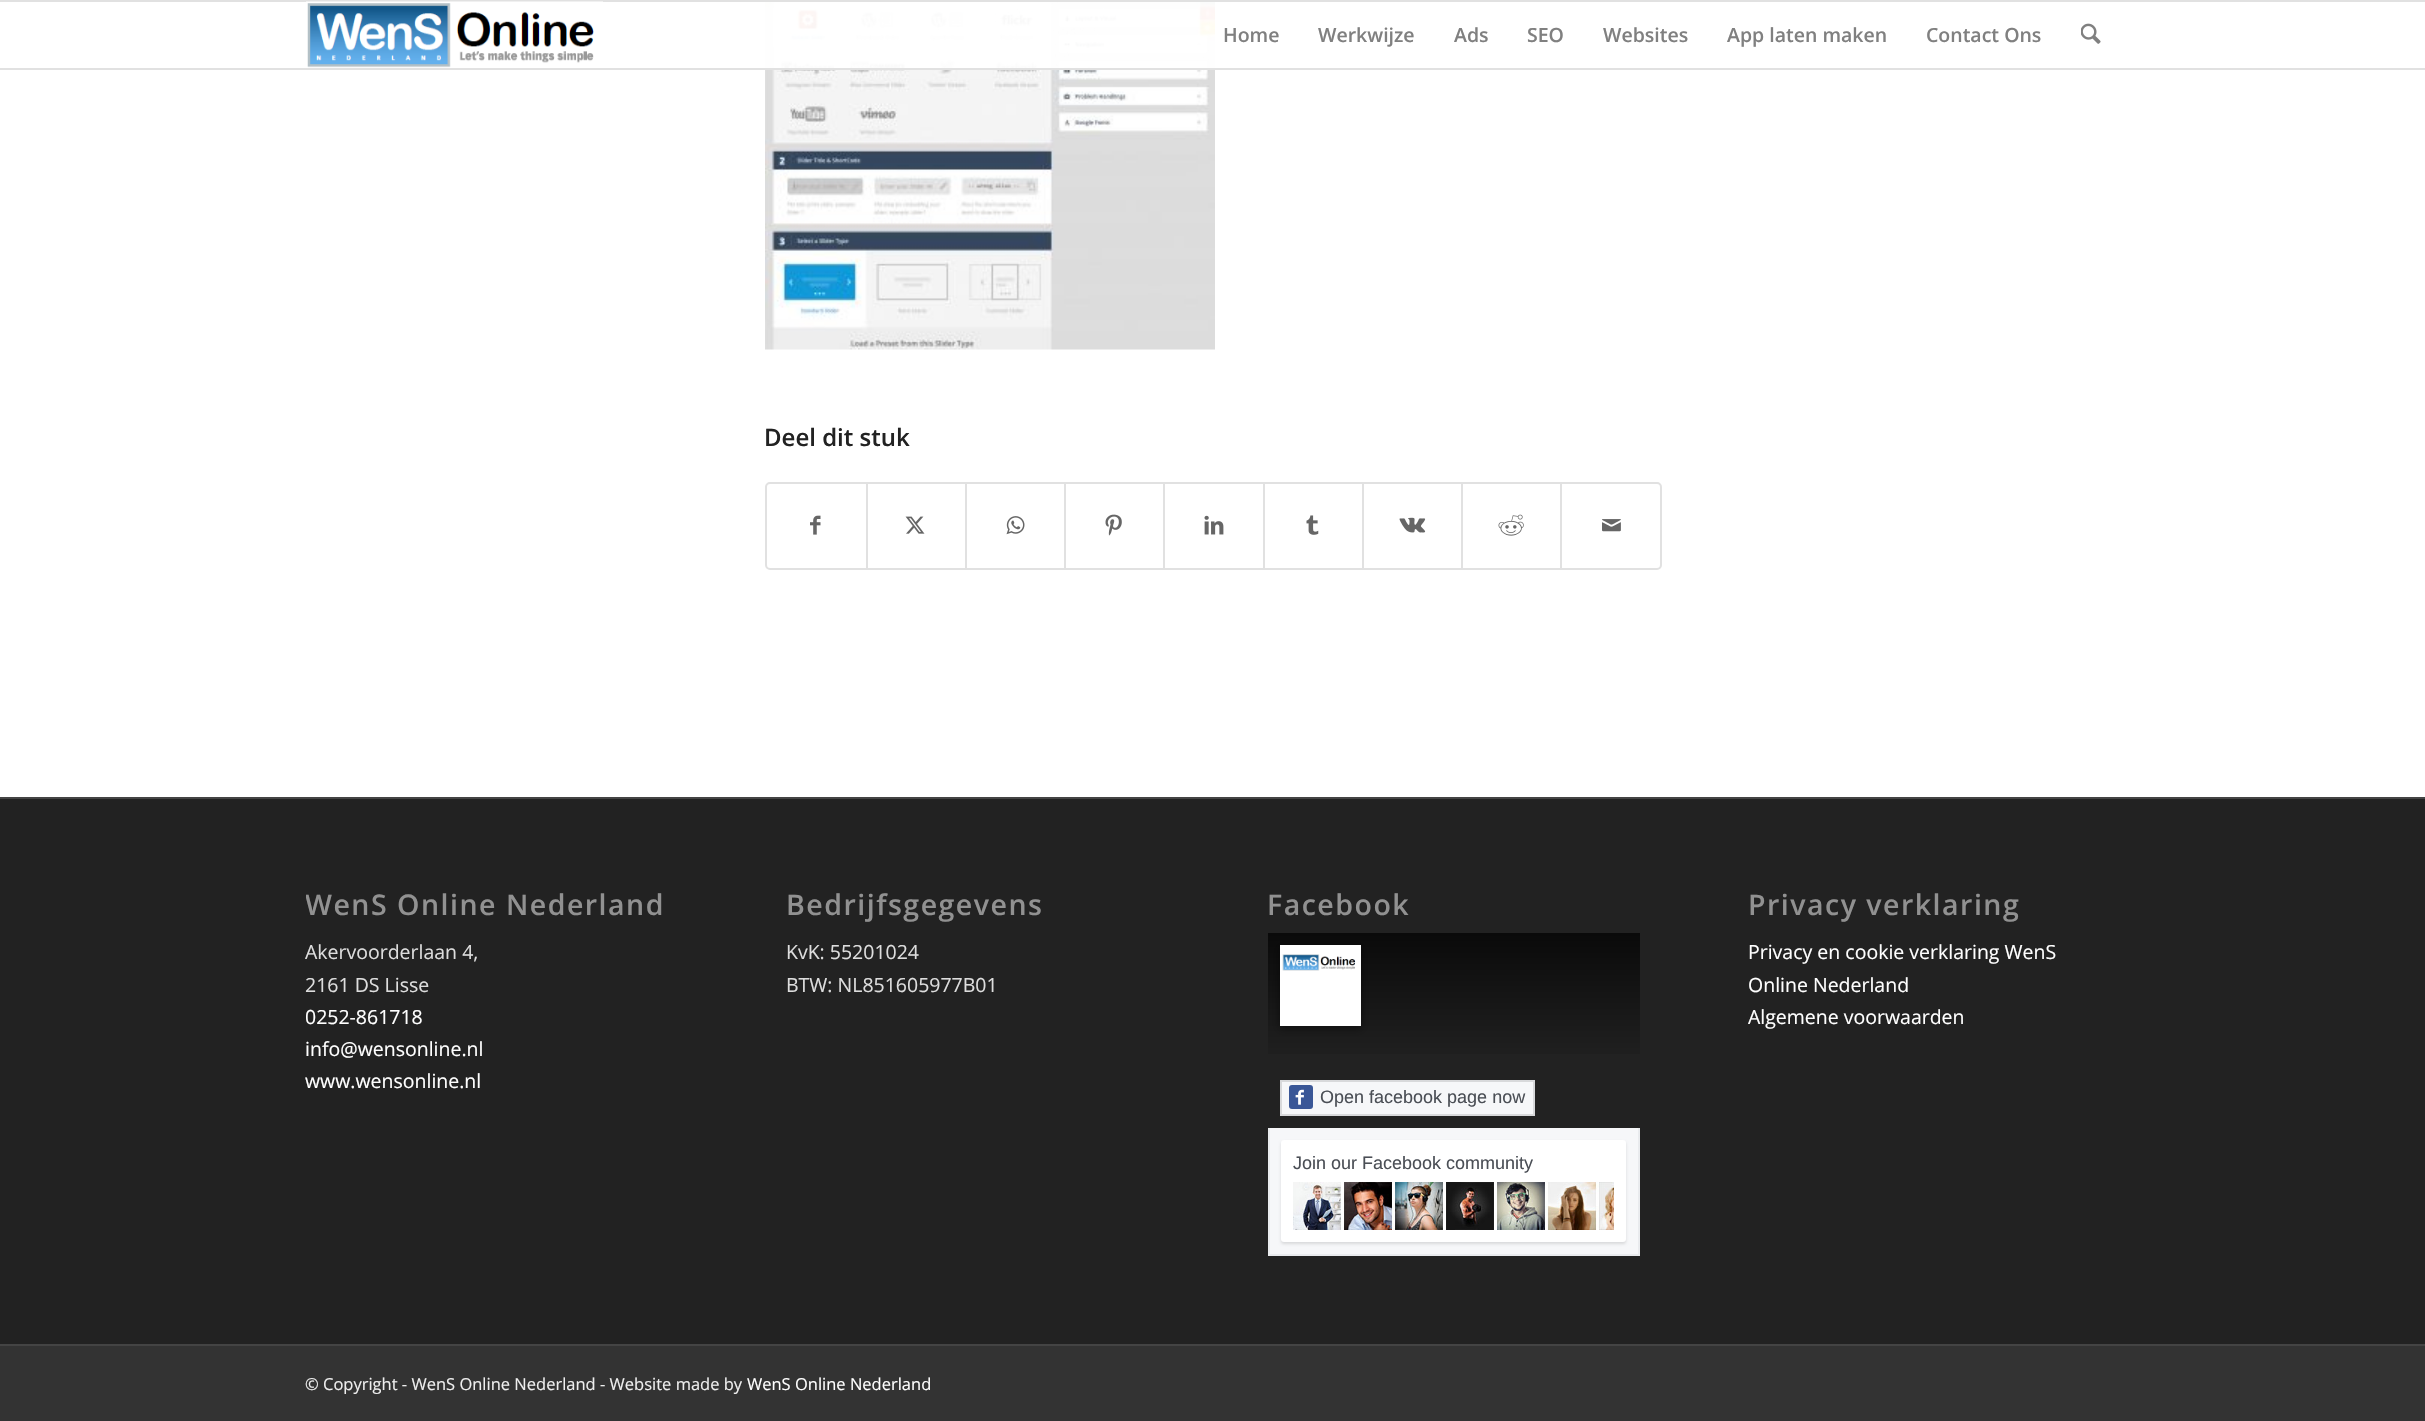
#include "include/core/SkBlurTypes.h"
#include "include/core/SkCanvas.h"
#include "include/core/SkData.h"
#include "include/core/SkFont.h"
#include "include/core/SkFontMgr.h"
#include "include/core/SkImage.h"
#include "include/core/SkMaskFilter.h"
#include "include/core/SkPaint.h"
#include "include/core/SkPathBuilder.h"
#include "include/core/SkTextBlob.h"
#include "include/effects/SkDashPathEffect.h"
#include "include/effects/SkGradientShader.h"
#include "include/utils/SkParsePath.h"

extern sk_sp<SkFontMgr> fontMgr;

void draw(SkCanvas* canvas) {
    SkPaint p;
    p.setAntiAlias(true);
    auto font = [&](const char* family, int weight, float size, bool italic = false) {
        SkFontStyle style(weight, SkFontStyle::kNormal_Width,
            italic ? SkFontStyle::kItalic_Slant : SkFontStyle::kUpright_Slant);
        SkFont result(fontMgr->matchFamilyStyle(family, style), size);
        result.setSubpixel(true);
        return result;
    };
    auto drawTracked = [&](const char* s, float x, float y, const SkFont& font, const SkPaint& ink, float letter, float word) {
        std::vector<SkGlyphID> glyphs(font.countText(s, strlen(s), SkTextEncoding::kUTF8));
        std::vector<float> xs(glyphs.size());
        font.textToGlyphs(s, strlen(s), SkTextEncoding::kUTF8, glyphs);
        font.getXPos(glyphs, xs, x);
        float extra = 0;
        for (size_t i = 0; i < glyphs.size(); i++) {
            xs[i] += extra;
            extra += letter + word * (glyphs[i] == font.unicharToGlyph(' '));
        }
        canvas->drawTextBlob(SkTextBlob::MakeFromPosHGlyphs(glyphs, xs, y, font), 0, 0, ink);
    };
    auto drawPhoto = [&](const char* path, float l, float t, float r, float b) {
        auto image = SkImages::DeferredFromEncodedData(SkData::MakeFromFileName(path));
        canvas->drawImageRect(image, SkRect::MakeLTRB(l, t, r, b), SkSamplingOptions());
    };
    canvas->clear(0xFFFFFFFF);
    drawPhoto("media/3.png", 765, 2, 1215, 350);
    {
        const struct { float l, t, r, b; SkColor color; } items[] = {
            {765, 2, 1215, 68, 0xF2FFFFFF},
            {0, 0, 2425, 2, 0xFFE1E1E1},
            {0, 68, 2425, 70, 0xFFE1E1E1},
        };
        for (auto [l, t, r, b, color] : items) {
            p.setColor(color);
            canvas->drawRect(SkRect::MakeLTRB(l, t, r, b), p);
        }
    }
    drawPhoto("media/1.png", 306, 1, 603, 68);
    auto font1 = font("Open Sans", 600, 19.5f);
    p.setColor(0xFF808080);
    {
        const struct { const char* s; float x, y; } items[] = {
            {"Home", 1223, 42},
            {"Werkwijze", 1318, 42},
            {"Ads", 1454, 42},
            {"SEO", 1527, 42},
            {"Websites", 1603, 42},
            {"App laten maken", 1727, 42},
            {"Contact Ons", 1926, 42},
        };
        for (auto [s, x, y] : items) {
            canvas->drawString(s, x, y, font1, p);
        }
    }
    drawPhoto("media/2.png", 2081, 23, 2101, 44);
    auto font2 = font("Open Sans", 600, 24);
    p.setColor(0xFF222222);
    canvas->drawString("Deel dit stuk", 764, 446, font2, p);
    p.setStyle(SkPaint::kStroke_Style);
    p.setStrokeWidth(2);
    p.setColor(0xFFE1E1E1);
    canvas->drawRoundRect(SkRect::MakeLTRB(766, 483, 1661, 569), 4, 4, p);
    drawPhoto("media/4.png", 810, 515, 821, 535);
    p.setStyle(SkPaint::kFill_Style);
    canvas->drawRect(SkRect::MakeLTRB(866, 483, 868, 569), p);
    drawPhoto("media/5.png", 905, 516, 925, 534);
    canvas->drawRect(SkRect::MakeLTRB(965, 483, 967, 569), p);
    drawPhoto("media/6.png", 1006, 516, 1025, 535);
    canvas->drawRect(SkRect::MakeLTRB(1064, 483, 1066, 569), p);
    drawPhoto("media/7.png", 1105, 514, 1122, 536);
    canvas->drawRect(SkRect::MakeLTRB(1163, 483, 1165, 569), p);
    drawPhoto("media/8.png", 1204, 515, 1224, 535);
    canvas->drawRect(SkRect::MakeLTRB(1263, 483, 1265, 569), p);
    drawPhoto("media/9.png", 1306, 515, 1319, 535);
    canvas->drawRect(SkRect::MakeLTRB(1362, 483, 1364, 569), p);
    drawPhoto("media/10.png", 1399, 517, 1426, 533);
    canvas->drawRect(SkRect::MakeLTRB(1461, 483, 1463, 569), p);
    drawPhoto("media/11.png", 1498, 514, 1524, 536);
    canvas->drawRect(SkRect::MakeLTRB(1560, 483, 1562, 569), p);
    drawPhoto("media/12.png", 1602, 519, 1621, 532);
    p.setColor(0xFF222222);
    canvas->drawRect(SkRect::MakeLTRB(0, 799, 2425, 1344), p);
    p.setColor(0xFF444444);
    canvas->drawRect(SkRect::MakeLTRB(0, 797, 2425, 799), p);
    canvas->save();
    canvas->clipRect(SkRect::MakeLTRB(306, 866, 678, 1115));
    auto font3 = font("Open Sans", 600, 28.5f);
    p.setColor(0xFF919191);
    drawTracked("WenS Online Nederland", 305, 915, font3, p, 1.5f, 0);
    canvas->restore();
    auto font4 = font("Open Sans", 400, 19.5f);
    p.setColor(0xFFDDDDDD);
    canvas->drawString("Akervoorderlaan 4,", 305, 959, font4, p);
    canvas->drawString("2161 DS Lisse", 305, 992, font4, p);
    p.setColor(0xFFFFFFFF);
    {
        const struct { const char* s; float x, y; } items[] = {
            {"0252-861718", 305, 1024},
            {"info@wensonline.nl", 305, 1056},
            {"www.wensonline.nl", 305, 1088},
        };
        for (auto [s, x, y] : items) {
            canvas->drawString(s, x, y, font4, p);
        }
    }
    p.setColor(0xFF919191);
    drawTracked("Bedrijfsgegevens", 786, 915, font3, p, 1.5f, 0);
    p.setColor(0xFFDDDDDD);
    canvas->drawString("KvK: 55201024", 786, 959, font4, p);
    canvas->drawString("BTW: NL851605977B01", 786, 992, font4, p);
    p.setColor(0xFF919191);
    drawTracked("Facebook", 1267, 915, font3, p, 1.5f, 0);
    {
        const SkColor colors[] = {0xFF0A0A0A, 0xFF222222};
        const float stops[] = {0, 1};
        const SkPoint ends[] = {{1454, 933}, {1454, 1068}};
        p.setShader(SkGradientShader::MakeLinear(ends, colors, stops, 2, SkTileMode::kClamp));
        p.setAlpha(255);
    }
    canvas->drawRect(SkRect::MakeLTRB(1268, 933, 1640, 1054), p);
    p.setShader(nullptr);
    p.setColor(0x80000000);
    p.setMaskFilter(SkMaskFilter::MakeBlur(kNormal_SkBlurStyle, 4.5f));
    canvas->drawRect(SkRect::MakeLTRB(1280, 947, 1361, 1028), p);
    p.setMaskFilter(nullptr);
    p.setColor(0xFFFFFFFF);
    canvas->drawRect(SkRect::MakeLTRB(1280, 945, 1361, 1026), p);
    drawPhoto("media/13.png", 1282, 954, 1356, 971);
    p.setColor(0xFFF6F7F9);
    canvas->drawRect(SkRect::MakeLTRB(1281, 1081, 1534, 1115), p);
    p.setStyle(SkPaint::kStroke_Style);
    p.setColor(0xFFD8D9DB);
    canvas->drawRect(SkRect::MakeLTRB(1281, 1081, 1534, 1115), p);
    p.setStyle(SkPaint::kFill_Style);
    p.setColor(0xFF3A5797);
    canvas->drawRoundRect(SkRect::MakeLTRB(1289, 1085, 1313, 1109), 3, 3, p);
    drawPhoto("media/14.png", 1295, 1089, 1304, 1105);
    auto font5 = font("Liberation Sans", 400, 18);
    p.setColor(0xFF4B4F56);
    canvas->drawString("Open facebook page now", 1320, 1103, font5, p);
    {
        const struct { float l, t, r, b; SkColor color; } items[] = {
            {1270, 1128, 1638, 1254, 0xFFF6F7F9},
            {1638, 1128, 1640, 1256, 0xFFE9EBEE},
            {1268, 1254, 1640, 1256, 0xFFE9EBEE},
            {1268, 1128, 1270, 1256, 0xFFE9EBEE},
        };
        for (auto [l, t, r, b, color] : items) {
            p.setColor(color);
            canvas->drawRect(SkRect::MakeLTRB(l, t, r, b), p);
        }
    }
    p.setColor(0x1F000000);
    p.setMaskFilter(SkMaskFilter::MakeBlur(kNormal_SkBlurStyle, 1.5f));
    canvas->drawRoundRect(SkRect::MakeLTRB(1281, 1142, 1626, 1244), 3, 3, p);
    p.setMaskFilter(nullptr);
    p.setColor(0xFFFFFFFF);
    canvas->drawRoundRect(SkRect::MakeLTRB(1281, 1140, 1626, 1242), 3, 3, p);
    p.setColor(0xFF4B4F56);
    canvas->drawString("Join our Facebook community", 1293, 1169, font5, p);
    drawPhoto("media/15.png", 1293, 1182, 1614, 1230);
    p.setColor(0xFF919191);
    drawTracked("Privacy verklaring", 1748, 915, font3, p, 1.5f, 0);
    p.setColor(0xFFFFFFFF);
    {
        const struct { const char* s; float x, y; } items[] = {
            {"Privacy en cookie verklaring WenS", 1748, 959},
            {"Online Nederland", 1748, 992},
            {"Algemene voorwaarden", 1748, 1024},
        };
        for (auto [s, x, y] : items) {
            canvas->drawString(s, x, y, font4, p);
        }
    }
    p.setColor(0xFF333333);
    canvas->drawRect(SkRect::MakeLTRB(0, 1346, 2425, 1421), p);
    p.setColor(0xFF444444);
    canvas->drawRect(SkRect::MakeLTRB(0, 1344, 2425, 1346), p);
    auto font6 = font("Open Sans", 400, 16.5f);
    p.setColor(0xFFEEEEEE);
    canvas->drawString("© Copyright - WenS Online Nederland - Website made by", 305, 1390, font6, p);
    p.setColor(0xFFFFFFFF);
    canvas->drawString("WenS Online Nederland", 747, 1390, font6, p);
}
